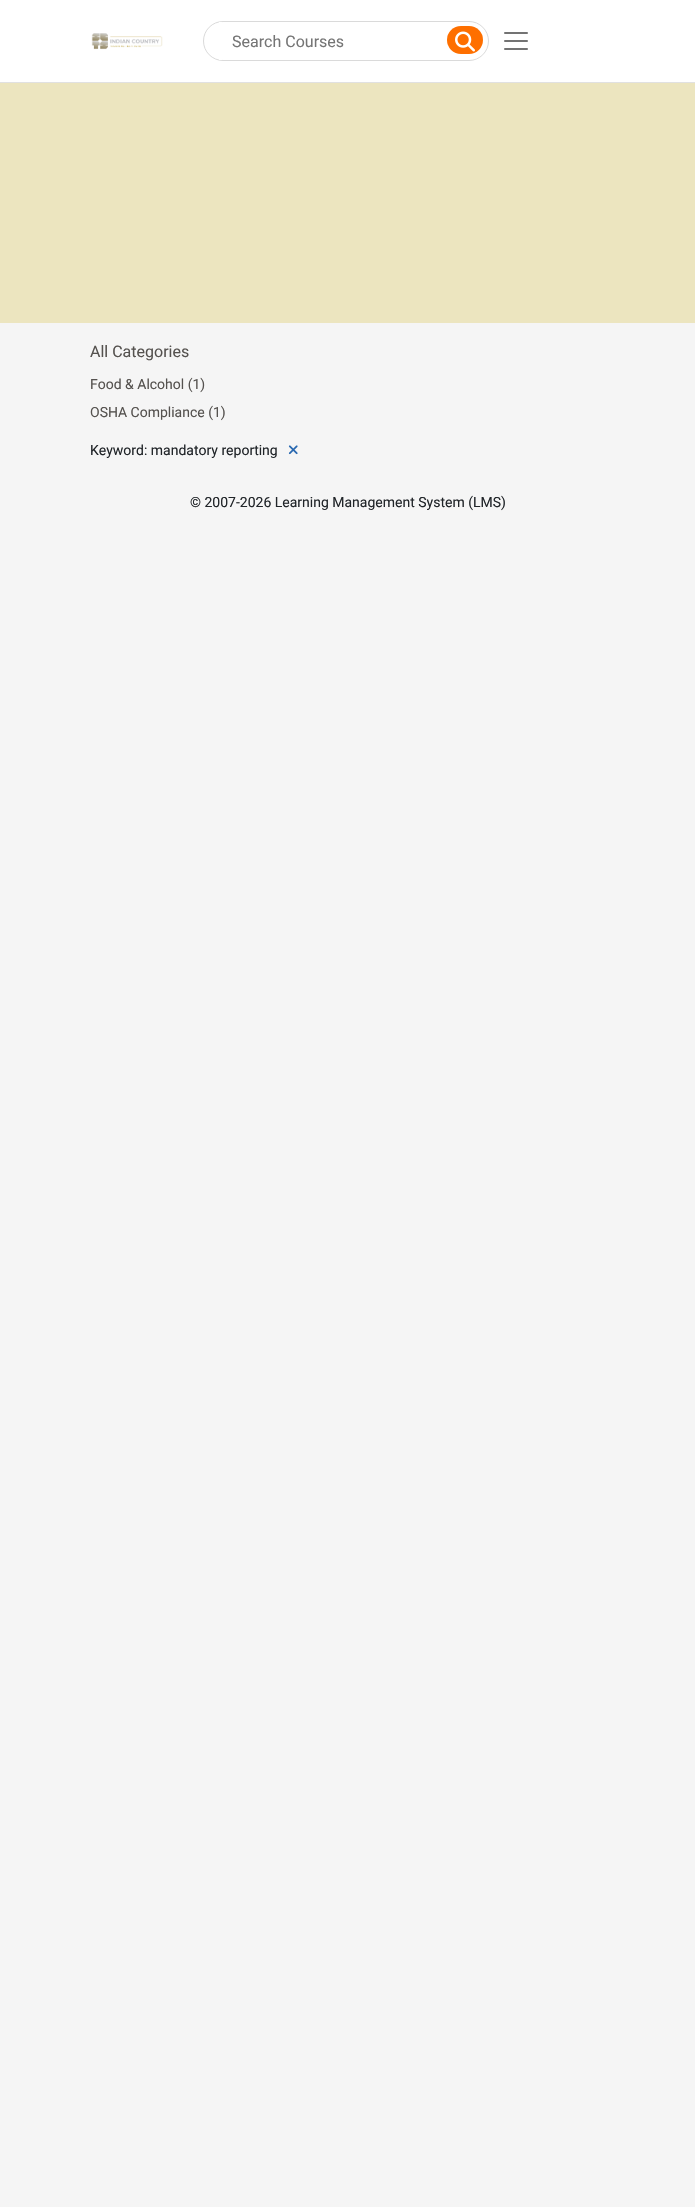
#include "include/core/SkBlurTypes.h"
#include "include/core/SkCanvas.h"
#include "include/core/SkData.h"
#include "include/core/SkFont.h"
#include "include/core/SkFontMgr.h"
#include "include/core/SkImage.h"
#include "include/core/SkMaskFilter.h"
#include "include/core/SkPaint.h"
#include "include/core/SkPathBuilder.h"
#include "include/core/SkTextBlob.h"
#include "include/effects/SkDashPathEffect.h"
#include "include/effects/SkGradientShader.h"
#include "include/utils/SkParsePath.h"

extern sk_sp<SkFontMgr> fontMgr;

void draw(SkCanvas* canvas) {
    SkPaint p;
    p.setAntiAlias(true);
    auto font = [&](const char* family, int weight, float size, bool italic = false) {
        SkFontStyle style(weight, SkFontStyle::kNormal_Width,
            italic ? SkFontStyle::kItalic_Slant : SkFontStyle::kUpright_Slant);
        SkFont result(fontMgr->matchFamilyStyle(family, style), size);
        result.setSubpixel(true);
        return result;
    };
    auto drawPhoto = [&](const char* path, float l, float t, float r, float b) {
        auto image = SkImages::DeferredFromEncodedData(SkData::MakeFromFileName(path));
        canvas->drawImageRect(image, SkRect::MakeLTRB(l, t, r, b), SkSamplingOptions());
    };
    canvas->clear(0xFFF5F5F5);
    p.setColor(0xFFFFFFFF);
    canvas->drawRect(SkRect::MakeLTRB(0, 0, 695, 82), p);
    p.setColor(0xFFE1E1E1);
    canvas->drawRect(SkRect::MakeLTRB(0, 82, 695, 83), p);
    drawPhoto("media/1.png", 91, 33, 163, 50);
    p.setStyle(SkPaint::kStroke_Style);
    p.setStrokeWidth(1);
    p.setColor(0xFFDADADA);
    canvas->drawRoundRect(SkRect::MakeLTRB(203.5f, 21.5f, 488.5f, 60.5f), 19.5f, 19.5f, p);
    p.setStyle(SkPaint::kFill_Style);
    p.setColor(0xFFFFFFFF);
    canvas->drawRect(SkRect::MakeLTRB(219, 22, 222, 60), p);
    auto font1 = font("Roboto", 400, 16);
    p.setColor(0xFF757575);
    canvas->drawString("Search Courses", 232, 47, font1, p);
    p.setColor(0xFFFE6F00);
    canvas->drawRoundRect(SkRect::MakeLTRB(447, 26, 483, 54), 14, 14, p);
    drawPhoto("media/2.png", 455, 31, 475, 52);
    drawPhoto("media/3.png", 504, 32, 528, 50);
    p.setColor(0xFFECE5BF);
    canvas->drawRect(SkRect::MakeLTRB(0, 83, 695, 323), p);
    p.setColor(0xFF55524F);
    canvas->drawString("All Categories", 90, 357, font1, p);
    auto font2 = font("Roboto", 400, 14);
    canvas->drawString("Food & Alcohol (1)", 90, 389, font2, p);
    canvas->drawString("OSHA Compliance (1)", 90, 417, font2, p);
    p.setColor(0xFF212529);
    canvas->drawString("Keyword: mandatory reporting", 90, 455, font2, p);
    drawPhoto("media/4.png", 288, 445, 298, 455);
    canvas->drawString("© 2007-2026 Learning Management System (LMS)", 190, 507, font2, p);
}
